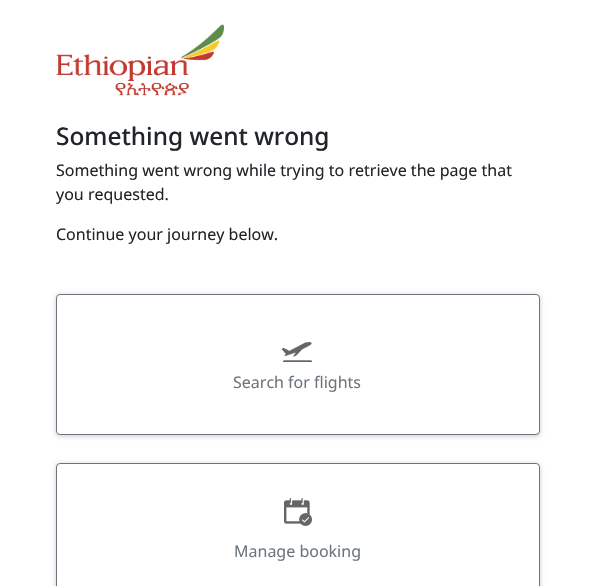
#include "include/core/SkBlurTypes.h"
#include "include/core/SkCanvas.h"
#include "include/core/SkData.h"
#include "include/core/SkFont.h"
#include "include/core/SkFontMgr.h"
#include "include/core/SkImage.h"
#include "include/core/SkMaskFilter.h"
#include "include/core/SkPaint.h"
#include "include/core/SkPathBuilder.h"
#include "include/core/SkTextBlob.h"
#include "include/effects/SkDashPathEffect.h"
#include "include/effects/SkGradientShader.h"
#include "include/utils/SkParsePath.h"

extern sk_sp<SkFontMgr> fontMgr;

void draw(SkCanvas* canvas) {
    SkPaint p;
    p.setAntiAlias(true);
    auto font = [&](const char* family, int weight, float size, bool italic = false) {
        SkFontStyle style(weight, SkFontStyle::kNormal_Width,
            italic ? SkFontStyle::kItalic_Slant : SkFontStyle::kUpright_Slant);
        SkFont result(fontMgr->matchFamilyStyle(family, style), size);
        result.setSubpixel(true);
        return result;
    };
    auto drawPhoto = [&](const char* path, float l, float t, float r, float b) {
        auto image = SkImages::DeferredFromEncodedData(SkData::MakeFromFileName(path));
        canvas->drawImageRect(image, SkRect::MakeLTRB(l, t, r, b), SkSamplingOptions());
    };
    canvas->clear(0xFFFFFFFF);
    drawPhoto("media/1.png", 56, 24, 224, 96);
    auto font1 = font("Noto Sans", 500, 24.4f);
    p.setColor(0xFF212529);
    canvas->drawString("Something went wrong", 56, 145, font1, p);
    auto font2 = font("Noto Sans", 400, 16);
    {
        const struct { const char* s; float x, y; } items[] = {
            {"Something went wrong while trying to retrieve the page that", 56, 176},
            {"you requested.", 56, 200},
            {"Continue your journey below.", 56, 240},
        };
        for (auto [s, x, y] : items) {
            canvas->drawString(s, x, y, font2, p);
        }
    }
    p.setColor(0xFFCCCCCC);
    p.setMaskFilter(SkMaskFilter::MakeBlur(kNormal_SkBlurStyle, 2.5f));
    canvas->drawRoundRect(SkRect::MakeLTRB(56, 295, 540, 436), 4, 4, p);
    p.setMaskFilter(nullptr);
    p.setColor(0xFFFFFFFF);
    canvas->drawRoundRect(SkRect::MakeLTRB(56.5f, 294.5f, 539.5f, 434.5f), 3.5f, 3.5f, p);
    p.setStyle(SkPaint::kStroke_Style);
    p.setStrokeWidth(1);
    p.setColor(0xFF6C757D);
    canvas->drawRoundRect(SkRect::MakeLTRB(56.5f, 294.5f, 539.5f, 434.5f), 3.5f, 3.5f, p);
    drawPhoto("media/2.png", 282, 342, 312, 362);
    p.setStyle(SkPaint::kFill_Style);
    canvas->drawString("Search for flights", 233, 388, font2, p);
    p.setColor(0xFFCCCCCC);
    p.setMaskFilter(SkMaskFilter::MakeBlur(kNormal_SkBlurStyle, 2.5f));
    canvas->drawRoundRect(SkRect::MakeLTRB(56, 464, 540, 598), 4, 4, p);
    p.setMaskFilter(nullptr);
    p.setColor(0xFFFFFFFF);
    canvas->drawRoundRect(SkRect::MakeLTRB(56.5f, 463.5f, 539.5f, 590.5f), 3.5f, 3.5f, p);
    p.setStyle(SkPaint::kStroke_Style);
    p.setColor(0xFF6C757D);
    canvas->drawRoundRect(SkRect::MakeLTRB(56.5f, 463.5f, 539.5f, 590.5f), 3.5f, 3.5f, p);
    drawPhoto("media/3.png", 284, 498, 312, 526);
    p.setStyle(SkPaint::kFill_Style);
    canvas->drawString("Manage booking", 234, 557, font2, p);
}
